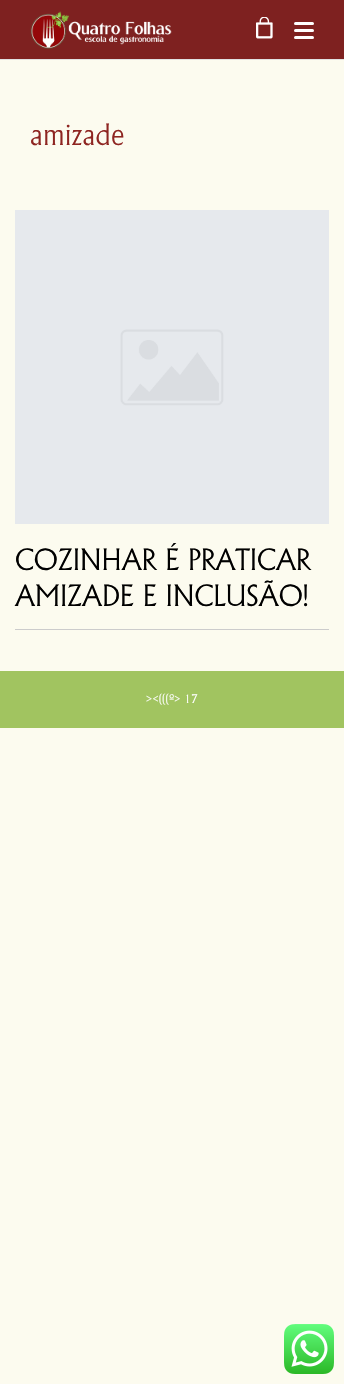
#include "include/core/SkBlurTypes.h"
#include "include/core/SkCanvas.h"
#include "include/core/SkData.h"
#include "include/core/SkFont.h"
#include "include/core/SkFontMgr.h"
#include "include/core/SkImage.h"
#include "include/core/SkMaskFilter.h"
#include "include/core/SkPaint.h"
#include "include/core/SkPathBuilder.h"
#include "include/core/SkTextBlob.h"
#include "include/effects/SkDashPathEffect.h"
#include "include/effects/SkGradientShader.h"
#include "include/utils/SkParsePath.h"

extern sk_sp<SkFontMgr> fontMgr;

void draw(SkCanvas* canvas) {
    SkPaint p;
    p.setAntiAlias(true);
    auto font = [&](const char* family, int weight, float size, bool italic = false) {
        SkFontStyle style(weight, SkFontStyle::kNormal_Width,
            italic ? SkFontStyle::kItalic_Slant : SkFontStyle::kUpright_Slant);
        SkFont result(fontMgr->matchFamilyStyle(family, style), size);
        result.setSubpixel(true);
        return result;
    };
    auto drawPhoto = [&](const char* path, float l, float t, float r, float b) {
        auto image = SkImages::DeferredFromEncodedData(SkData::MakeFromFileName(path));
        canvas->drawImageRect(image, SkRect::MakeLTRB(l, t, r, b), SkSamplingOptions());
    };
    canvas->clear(0xFFFCFBEF);
    p.setColor(0xFF7E2120);
    canvas->drawRect(SkRect::MakeLTRB(0, 0, 344, 59), p);
    p.setColor(0xFFE1E1E1);
    canvas->drawRect(SkRect::MakeLTRB(0, 59, 344, 60), p);
    drawPhoto("media/1.png", 30, 11, 172, 49);
    drawPhoto("media/2.png", 256, 17, 273, 39);
    p.setColor(0xFFFFFFFF);
    canvas->drawRoundRect(SkRect::MakeLTRB(294, 22, 314, 25), 1.5f, 1.5f, p);
    canvas->drawRoundRect(SkRect::MakeLTRB(294, 29, 314, 32), 1.5f, 1.5f, p);
    canvas->drawRoundRect(SkRect::MakeLTRB(294, 36, 314, 39), 1.5f, 1.5f, p);
    auto font1 = font("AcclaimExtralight", 200, 30);
    p.setColor(0xFF8E2521);
    canvas->drawString("amizade", 30, 145, font1, p);
    p.setColor(0xFFCCCCCC);
    canvas->drawRect(SkRect::MakeLTRB(15, 629, 329, 630), p);
    drawPhoto("media/3.png", 15, 210, 329, 524);
    p.setColor(0xFF000000);
    canvas->drawString("COZINHAR É PRATICAR", 15, 570, font1, p);
    canvas->drawString("AMIZADE E INCLUSÃO!", 15, 606, font1, p);
    p.setColor(0xFFA1C460);
    canvas->drawRect(SkRect::MakeLTRB(0, 671, 344, 728), p);
    auto font2 = font("AcclaimExtralight", 200, 12);
    p.setColor(0xFFFFFFFF);
    canvas->drawString("><(((º> 17", 146, 703, font2, p);
    drawPhoto("media/4.png", 284, 1324, 334, 1374);
}
